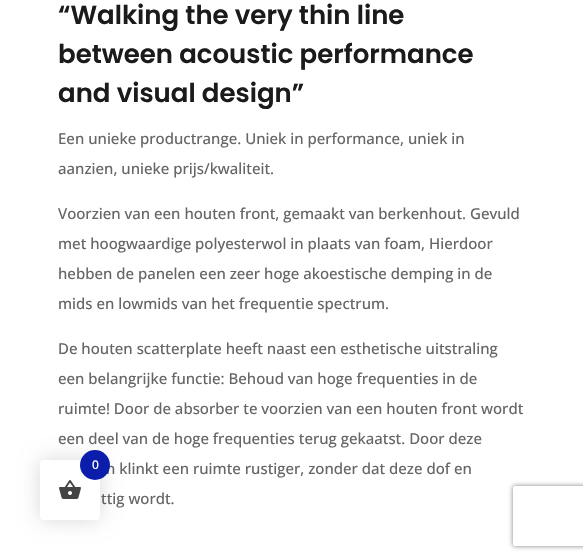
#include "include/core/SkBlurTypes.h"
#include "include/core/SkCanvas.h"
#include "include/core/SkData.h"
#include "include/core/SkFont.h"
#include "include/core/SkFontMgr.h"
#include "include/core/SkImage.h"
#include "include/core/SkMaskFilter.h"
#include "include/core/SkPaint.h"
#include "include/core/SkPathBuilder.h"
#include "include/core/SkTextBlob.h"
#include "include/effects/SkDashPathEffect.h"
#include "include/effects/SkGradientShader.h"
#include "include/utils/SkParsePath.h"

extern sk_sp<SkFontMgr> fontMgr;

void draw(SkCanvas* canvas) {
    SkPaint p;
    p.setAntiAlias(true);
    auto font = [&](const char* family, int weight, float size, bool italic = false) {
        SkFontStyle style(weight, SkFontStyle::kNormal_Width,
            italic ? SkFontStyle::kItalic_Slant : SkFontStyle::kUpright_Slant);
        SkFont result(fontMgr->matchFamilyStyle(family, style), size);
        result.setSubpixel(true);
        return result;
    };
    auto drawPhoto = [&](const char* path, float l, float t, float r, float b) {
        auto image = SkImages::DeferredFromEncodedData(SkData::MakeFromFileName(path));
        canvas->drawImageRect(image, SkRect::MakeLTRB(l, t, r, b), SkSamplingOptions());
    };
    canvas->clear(0xFFFFFFFF);
    auto font1 = font("Poppins", 600, 26);
    p.setColor(0xFF1B1B1B);
    {
        const struct { const char* s; float x, y; } items[] = {
            {"“Walking the very thin line", 58, 24},
            {"between acoustic performance", 58, 63},
            {"and visual design”", 58, 102},
        };
        for (auto [s, x, y] : items) {
            canvas->drawString(s, x, y, font1, p);
        }
    }
    auto font2 = font("Open Sans", 500, 15);
    p.setColor(0xFF666666);
    {
        const struct { const char* s; float x, y; } items[] = {
            {"Een unieke productrange. Uniek in performance, uniek in", 58, 144},
            {"aanzien, unieke prijs/kwaliteit.", 58, 174},
            {"Voorzien van een houten front, gemaakt van berkenhout. Gevuld", 58, 219},
            {"met hoogwaardige polyesterwol in plaats van foam, Hierdoor", 58, 249},
            {"hebben de panelen een zeer hoge akoestische demping in de", 58, 279},
            {"mids en lowmids van het frequentie spectrum.", 58, 309},
            {"De houten scatterplate heeft naast een esthetische uitstraling", 58, 354},
            {"een belangrijke functie: Behoud van hoge frequenties in de", 58, 384},
            {"ruimte! Door de absorber te voorzien van een houten front wordt", 58, 414},
            {"een deel van de hoge frequenties terug gekaatst. Door deze", 58, 444},
            {"n klinkt een ruimte rustiger, zonder dat deze dof en", 106, 474},
            {"ttig wordt.", 101, 504},
        };
        for (auto [s, x, y] : items) {
            canvas->drawString(s, x, y, font2, p);
        }
    }
    p.setColor(0x26000000);
    p.setMaskFilter(SkMaskFilter::MakeBlur(kNormal_SkBlurStyle, 10));
    canvas->drawRoundRect(SkRect::MakeLTRB(40, 460, 100, 520), 4, 4, p);
    p.setMaskFilter(nullptr);
    p.setColor(0xFFFFFFFF);
    canvas->drawRoundRect(SkRect::MakeLTRB(40, 460, 100, 520), 4, 4, p);
    p.setColor(0xFF0B1EAB);
    canvas->drawCircle(95, 465, 15, p);
    auto font3 = font("Open Sans", 500, 12);
    p.setColor(0xFFFFFFFF);
    canvas->drawString("0", 92, 469, font3, p);
    drawPhoto("media/1.png", 59, 480, 81, 499);
    canvas->save();
    canvas->clipPath(SkPathBuilder(SkPathFillType::kEvenOdd).moveTo(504, 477).lineTo(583, 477).lineTo(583, 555).lineTo(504, 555).close().moveTo(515, 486).lineTo(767, 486).cubicTo(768, 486, 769, 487, 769, 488).lineTo(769, 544).cubicTo(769, 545, 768, 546, 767, 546).lineTo(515, 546).cubicTo(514, 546, 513, 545, 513, 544).lineTo(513, 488).cubicTo(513, 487, 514, 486, 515, 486).close().detach(), true);
    p.setColor(0xFF808080);
    p.setMaskFilter(SkMaskFilter::MakeBlur(kNormal_SkBlurStyle, 2.5f));
    canvas->drawRoundRect(SkRect::MakeLTRB(513, 486, 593, 546), 2, 2, p);
    p.setMaskFilter(nullptr);
    canvas->restore();
}
